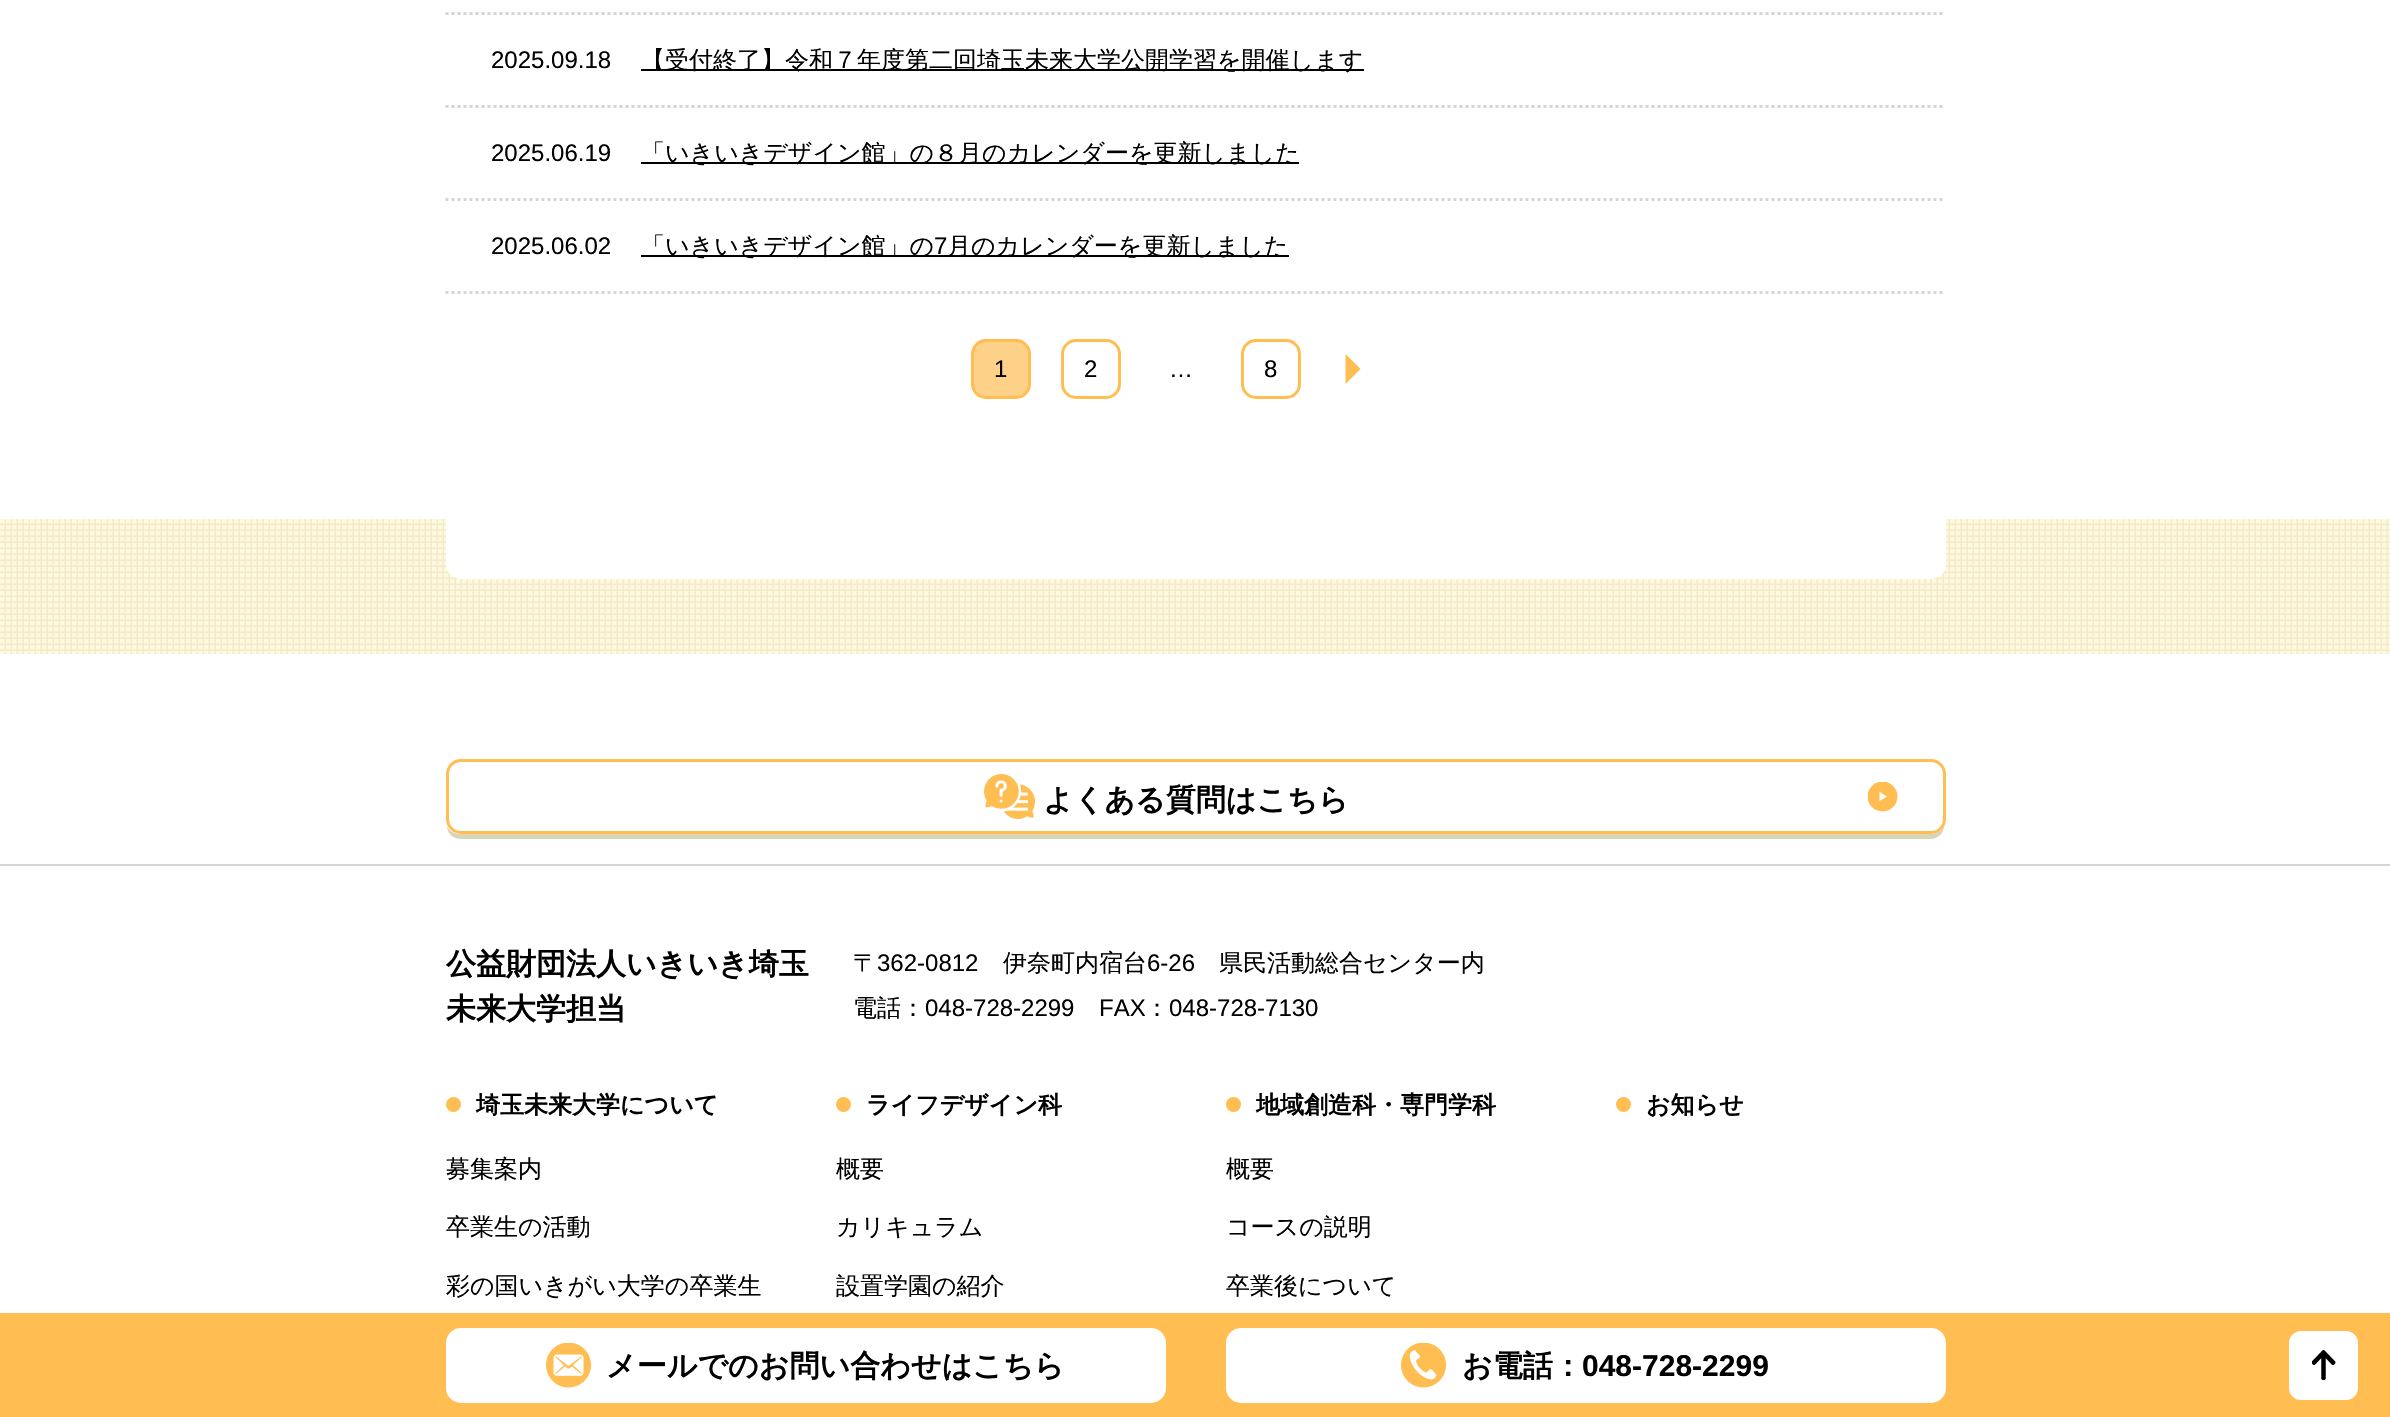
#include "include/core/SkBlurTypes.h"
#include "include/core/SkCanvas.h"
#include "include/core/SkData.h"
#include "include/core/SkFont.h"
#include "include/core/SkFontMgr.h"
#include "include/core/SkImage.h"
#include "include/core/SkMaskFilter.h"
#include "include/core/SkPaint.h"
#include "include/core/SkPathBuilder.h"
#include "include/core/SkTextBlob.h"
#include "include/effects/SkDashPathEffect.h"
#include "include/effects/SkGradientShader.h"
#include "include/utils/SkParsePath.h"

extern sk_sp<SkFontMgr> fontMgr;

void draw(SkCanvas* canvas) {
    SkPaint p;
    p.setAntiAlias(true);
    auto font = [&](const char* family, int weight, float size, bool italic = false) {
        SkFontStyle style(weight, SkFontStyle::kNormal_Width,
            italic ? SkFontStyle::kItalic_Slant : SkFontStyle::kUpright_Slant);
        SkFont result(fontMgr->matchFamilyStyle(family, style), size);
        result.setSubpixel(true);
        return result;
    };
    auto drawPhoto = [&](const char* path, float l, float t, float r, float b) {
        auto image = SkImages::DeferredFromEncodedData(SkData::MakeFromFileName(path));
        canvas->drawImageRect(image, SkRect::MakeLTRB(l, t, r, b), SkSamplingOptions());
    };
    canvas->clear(0xFFFFFFFF);
    drawPhoto("media/1.png", 0, 519, 2390, 654);
    p.setStyle(SkPaint::kStroke_Style);
    p.setStrokeWidth(3);
    p.setColor(0xFFD5D5D5);
    p.setPathEffect(SkDashPathEffect::Make({{3, 3}}, 0));
    canvas->drawPath(SkPathBuilder().moveTo(445.5f, 13.5f).lineTo(1945.5f, 13.5f).detach(), p);
    p.setPathEffect(nullptr);
    p.setPathEffect(SkDashPathEffect::Make({{3, 3}}, 0));
    canvas->drawPath(SkPathBuilder().moveTo(445.5f, 106.5f).lineTo(1945.5f, 106.5f).detach(), p);
    p.setPathEffect(nullptr);
    auto font1 = font("Liberation Sans", 400, 24);
    p.setStyle(SkPaint::kFill_Style);
    p.setColor(0xFF000000);
    canvas->drawString("2025.09.18", 491, 68, font1, p);
    canvas->drawRect(SkRect::MakeLTRB(641, 69, 1364, 71), p);
    auto font2 = font("WenQuanYi Zen Hei", 500, 24);
    canvas->drawString("【受付終了】令和７年度第二回埼玉未来大学公開学習を開催します", 641, 68, font2, p);
    p.setStyle(SkPaint::kStroke_Style);
    p.setColor(0xFFD5D5D5);
    p.setPathEffect(SkDashPathEffect::Make({{3, 3}}, 0));
    canvas->drawPath(SkPathBuilder().moveTo(445.5f, 199.5f).lineTo(1945.5f, 199.5f).detach(), p);
    p.setPathEffect(nullptr);
    p.setStyle(SkPaint::kFill_Style);
    p.setColor(0xFF000000);
    canvas->drawString("2025.06.19", 491, 161, font1, p);
    canvas->drawRect(SkRect::MakeLTRB(641, 162, 1299, 164), p);
    canvas->drawString("「いきいきデザイン館」の８月のカレンダーを更新しました", 641, 161, font2, p);
    p.setStyle(SkPaint::kStroke_Style);
    p.setColor(0xFFD5D5D5);
    p.setPathEffect(SkDashPathEffect::Make({{3, 3}}, 0));
    canvas->drawPath(SkPathBuilder().moveTo(445.5f, 292.5f).lineTo(1945.5f, 292.5f).detach(), p);
    p.setPathEffect(nullptr);
    p.setStyle(SkPaint::kFill_Style);
    p.setColor(0xFF000000);
    canvas->drawString("2025.06.02", 491, 254, font1, p);
    canvas->drawRect(SkRect::MakeLTRB(641, 255, 1289, 257), p);
    canvas->drawString("「いきいきデザイン館」の", 641, 254, font2, p);
    canvas->drawString("7", 934, 254, font1, p);
    canvas->drawString("月のカレンダーを更新しました", 947, 254, font2, p);
    p.setColor(0xFFFDD188);
    canvas->drawRoundRect(SkRect::MakeLTRB(972.5f, 340.5f, 1029.5f, 397.5f), 13.5f, 13.5f, p);
    p.setStyle(SkPaint::kStroke_Style);
    p.setColor(0xFFFFBD52);
    canvas->drawRoundRect(SkRect::MakeLTRB(972.5f, 340.5f, 1029.5f, 397.5f), 13.5f, 13.5f, p);
    p.setStyle(SkPaint::kFill_Style);
    p.setColor(0xFF000000);
    canvas->drawString("1", 994, 377, font1, p);
    p.setStyle(SkPaint::kStroke_Style);
    p.setColor(0xFFFFBD52);
    canvas->drawRoundRect(SkRect::MakeLTRB(1062.5f, 340.5f, 1119.5f, 397.5f), 13.5f, 13.5f, p);
    p.setStyle(SkPaint::kFill_Style);
    p.setColor(0xFF000000);
    canvas->drawString("2", 1084, 377, font1, p);
    canvas->drawString("…", 1169, 377, font1, p);
    p.setStyle(SkPaint::kStroke_Style);
    p.setColor(0xFFFFBD52);
    canvas->drawRoundRect(SkRect::MakeLTRB(1242.5f, 340.5f, 1299.5f, 397.5f), 13.5f, 13.5f, p);
    p.setStyle(SkPaint::kFill_Style);
    p.setColor(0xFF000000);
    canvas->drawString("8", 1264, 377, font1, p);
    p.setColor(0xFFFFBD52);
    canvas->drawPath(SkPathBuilder().moveTo(1345.5f, 384).lineTo(1345.5f, 354).lineTo(1360.5f, 369).close().detach(), p);
    p.setColor(0xFFFFFFFF);
    canvas->drawPath(SkPathBuilder().moveTo(446, 519).lineTo(1946, 519).lineTo(1946, 564).cubicTo(1946, 572.5f, 1939.5f, 579, 1931, 579).lineTo(461, 579).cubicTo(452.5f, 579, 446, 572.5f, 446, 564).close().detach(), p);
    p.setColor(0xFFDBD5B7);
    canvas->drawPath(SkPathBuilder().moveTo(447, 826).cubicTo(447, 833, 453, 839, 461, 839).lineTo(1930, 839).cubicTo(1938, 839, 1944, 833, 1944, 826).cubicTo(1942, 831, 1936, 834, 1930, 834).lineTo(460, 834).cubicTo(455, 834, 449, 831, 447, 826).close().detach(), p);
    p.setStyle(SkPaint::kStroke_Style);
    p.setColor(0xFFFFBD52);
    canvas->drawRoundRect(SkRect::MakeLTRB(447.5f, 760.5f, 1944.5f, 832.5f), 13.5f, 13.5f, p);
    drawPhoto("media/2.png", 984, 774, 1035, 819);
    auto font3 = font("WenQuanYi Zen Hei", 700, 30);
    p.setStyle(SkPaint::kFill_Style);
    p.setColor(0xFF000000);
    canvas->drawString("よくある質問はこちら", 1043, 810, font3, p);
    canvas->save();
    canvas->clipRect(SkRect::MakeLTRB(1868, 782, 1898, 812));
    p.setColor(0xFFFFBD52);
    canvas->drawCircle(1882.5f, 796.5f, 15, p);
    canvas->restore();
    p.setColor(0xFFFFFFFF);
    canvas->drawPath(SkPathBuilder().moveTo(1887, 796.5f).lineTo(1879.5f, 801).lineTo(1879.5f, 792).close().detach(), p);
    p.setColor(0xFFD5D5D5);
    canvas->drawRect(SkRect::MakeLTRB(0, 864, 2390, 866), p);
    p.setColor(0xFF000000);
    canvas->drawString("公益財団法人いきいき埼玉", 446, 974, font3, p);
    canvas->drawString("未来大学担当", 446, 1019, font3, p);
    canvas->drawString("〒", 853, 971, font2, p);
    canvas->drawString("362-0812", 877, 971, font1, p);
    canvas->drawString("伊奈町内宿台", 1003, 971, font2, p);
    canvas->drawString("6-26", 1147, 971, font1, p);
    canvas->drawString("県民活動総合センター内", 1219, 971, font2, p);
    canvas->drawString("電話：", 853, 1016, font2, p);
    canvas->drawString("048-728-2299", 925, 1016, font1, p);
    canvas->drawString("FAX", 1099, 1016, font1, p);
    canvas->drawString("：", 1145, 1016, font2, p);
    canvas->drawString("048-728-7130", 1169, 1016, font1, p);
    p.setColor(0xFFFFBD52);
    canvas->drawCircle(453.5f, 1104.5f, 7.5f, p);
    auto font4 = font("WenQuanYi Zen Hei", 700, 24);
    p.setColor(0xFF000000);
    canvas->drawString("埼玉未来大学について", 476, 1113, font4, p);
    {
        const struct { const char* s; float x, y; } items[] = {
            {"募集案内", 446, 1177},
            {"卒業生の活動", 446, 1235},
            {"彩の国いきがい大学の卒業生", 446, 1294},
        };
        for (auto [s, x, y] : items) {
            canvas->drawString(s, x, y, font2, p);
        }
    }
    p.setColor(0xFFFFBD52);
    canvas->drawCircle(843.5f, 1104.5f, 7.5f, p);
    p.setColor(0xFF000000);
    canvas->drawString("ライフデザイン科", 866, 1113, font4, p);
    {
        const struct { const char* s; float x, y; } items[] = {
            {"概要", 836, 1177},
            {"カリキュラム", 836, 1235},
            {"設置学園の紹介", 836, 1294},
        };
        for (auto [s, x, y] : items) {
            canvas->drawString(s, x, y, font2, p);
        }
    }
    p.setColor(0xFFFFBD52);
    canvas->drawCircle(1233.5f, 1104.5f, 7.5f, p);
    p.setColor(0xFF000000);
    canvas->drawString("地域創造科・専門学科", 1256, 1113, font4, p);
    {
        const struct { const char* s; float x, y; } items[] = {
            {"概要", 1226, 1177},
            {"コースの説明", 1226, 1235},
            {"卒業後について", 1226, 1294},
        };
        for (auto [s, x, y] : items) {
            canvas->drawString(s, x, y, font2, p);
        }
    }
    p.setColor(0xFFFFBD52);
    canvas->drawCircle(1623.5f, 1104.5f, 7.5f, p);
    p.setColor(0xFF000000);
    canvas->drawString("お知らせ", 1646, 1113, font4, p);
    p.setColor(0xFFFFBD52);
    canvas->drawRect(SkRect::MakeLTRB(0, 1313, 2390, 1417), p);
    p.setColor(0xFFFFFFFF);
    canvas->drawRoundRect(SkRect::MakeLTRB(446, 1328, 1166, 1403), 15, 15, p);
    drawPhoto("media/3.png", 546, 1343, 591, 1388);
    p.setColor(0xFF000000);
    canvas->drawString("メールでのお問い合わせはこちら", 606, 1376, font3, p);
    p.setColor(0xFFFFFFFF);
    canvas->drawRoundRect(SkRect::MakeLTRB(1226, 1328, 1946, 1403), 15, 15, p);
    drawPhoto("media/4.png", 1401, 1343, 1446, 1388);
    p.setColor(0xFF000000);
    canvas->drawString("お電話：", 1462, 1376, font3, p);
    auto font5 = font("Liberation Sans", 700, 30);
    canvas->drawString("048-728-2299", 1582, 1376, font5, p);
    p.setColor(0xFFFFFFFF);
    canvas->drawRoundRect(SkRect::MakeLTRB(2287.5f, 1329.5f, 2359.5f, 1401.5f), 13.5f, 13.5f, p);
    p.setStyle(SkPaint::kStroke_Style);
    p.setColor(0xFFFFBD52);
    canvas->drawRoundRect(SkRect::MakeLTRB(2287.5f, 1329.5f, 2359.5f, 1401.5f), 13.5f, 13.5f, p);
    drawPhoto("media/5.png", 2312, 1350, 2336, 1380);
}
